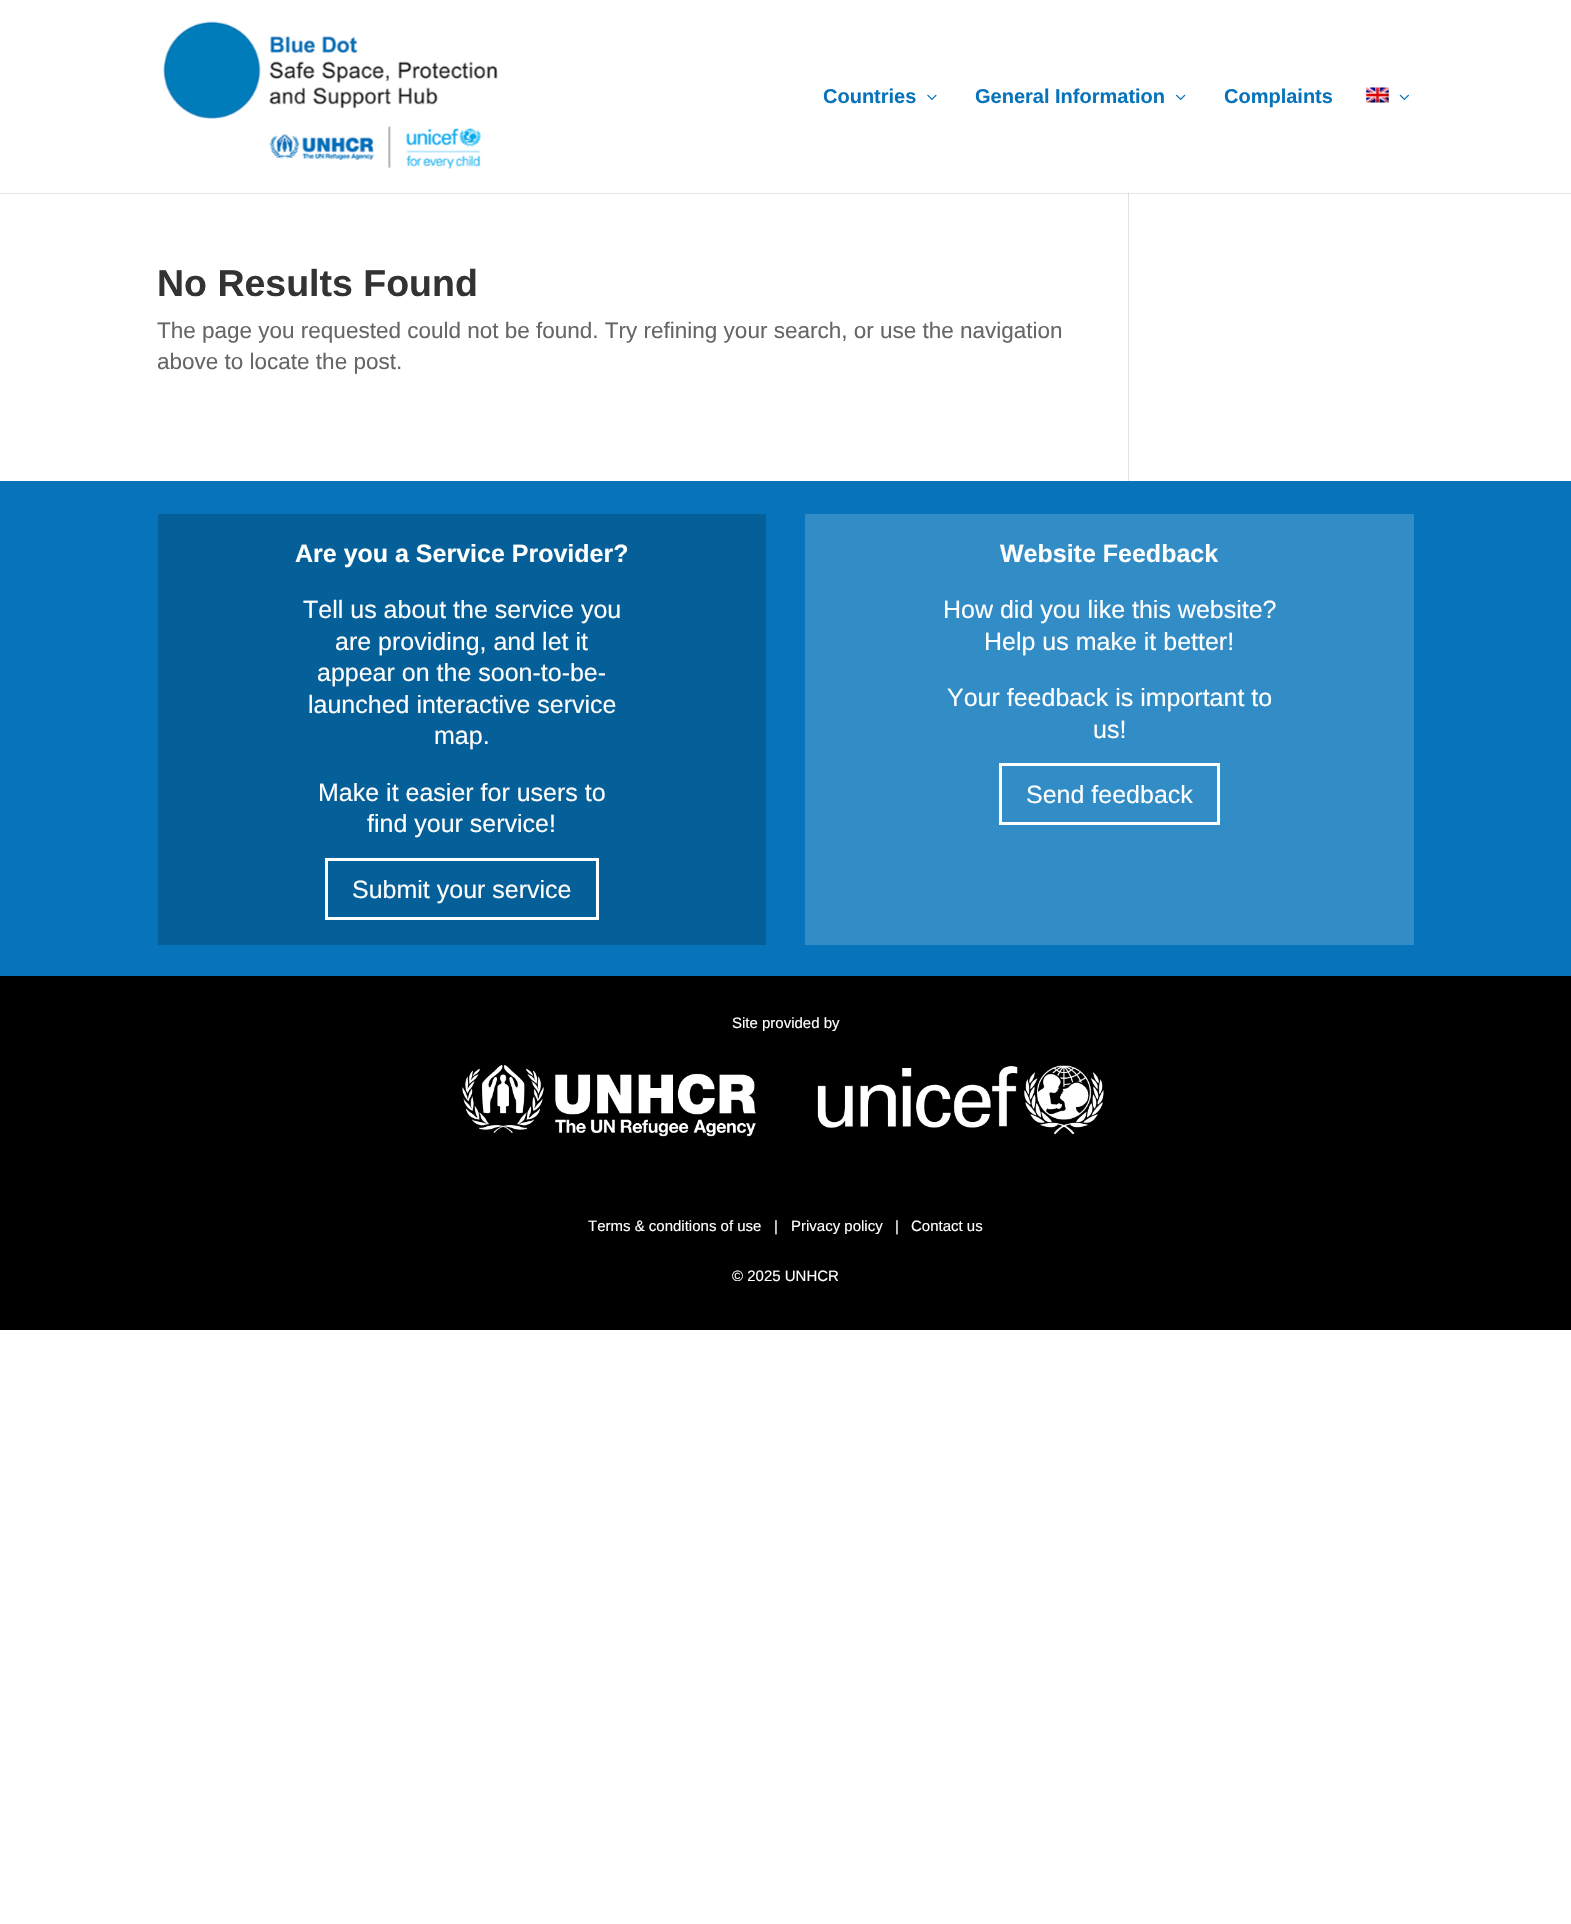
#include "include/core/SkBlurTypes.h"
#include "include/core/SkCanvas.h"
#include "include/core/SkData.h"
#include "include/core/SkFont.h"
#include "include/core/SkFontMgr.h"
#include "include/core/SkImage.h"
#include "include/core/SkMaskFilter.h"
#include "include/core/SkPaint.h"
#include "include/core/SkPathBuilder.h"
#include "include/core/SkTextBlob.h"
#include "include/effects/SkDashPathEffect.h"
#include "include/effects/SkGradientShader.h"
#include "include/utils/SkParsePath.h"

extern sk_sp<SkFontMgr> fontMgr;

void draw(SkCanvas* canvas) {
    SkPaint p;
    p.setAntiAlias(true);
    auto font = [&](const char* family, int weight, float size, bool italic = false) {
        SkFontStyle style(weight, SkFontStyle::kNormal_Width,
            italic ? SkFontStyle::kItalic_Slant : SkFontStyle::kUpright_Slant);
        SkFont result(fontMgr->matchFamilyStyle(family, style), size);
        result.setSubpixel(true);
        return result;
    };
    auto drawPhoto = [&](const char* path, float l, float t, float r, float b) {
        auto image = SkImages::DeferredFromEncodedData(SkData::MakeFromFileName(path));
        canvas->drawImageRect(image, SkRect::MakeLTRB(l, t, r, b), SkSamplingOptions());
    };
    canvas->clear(0xFFFFFFFF);
    p.setColor(0xFFE6E6E6);
    canvas->drawRect(SkRect::MakeLTRB(0, 193, 1571, 194), p);
    drawPhoto("media/1.png", 163, 21, 498, 169);
    auto font1 = font("Liberation Sans", 700, 20);
    p.setColor(0xFF0673BA);
    canvas->drawString("Countries", 823, 103, font1, p);
    drawPhoto("media/2.png", 927, 94, 937, 100);
    canvas->drawString("General Information", 975, 103, font1, p);
    drawPhoto("media/3.png", 1176, 94, 1186, 100);
    canvas->drawString("Complaints", 1224, 103, font1, p);
    drawPhoto("media/4.png", 1366, 87, 1389, 103);
    drawPhoto("media/5.png", 1399, 94, 1409, 100);
    auto font2 = font("Liberation Sans", 700, 37.5f);
    p.setColor(0xFF333333);
    canvas->drawString("No Results Found", 157, 296, font2, p);
    auto font3 = font("Liberation Sans", 400, 22.5f);
    p.setColor(0xFF666666);
    canvas->drawString("The page you requested could not be found. Try refining your search, or use the navigation", 157, 338, font3, p);
    canvas->drawString("above to locate the post.", 157, 369, font3, p);
    {
        const struct { float l, t, r, b; SkColor color; } items[] = {
            {1128, 193, 1129, 481, 0xFFE2E2E2},
            {1128, 193, 1129, 194, 0xFFCBCBCB},
            {0, 481, 1571, 976, 0xFF0673BA},
            {158, 514, 766, 945, 0xFF055F98},
        };
        for (auto [l, t, r, b, color] : items) {
            p.setColor(color);
            canvas->drawRect(SkRect::MakeLTRB(l, t, r, b), p);
        }
    }
    auto font4 = font("Liberation Sans", 700, 25);
    p.setColor(0xFFFFFFFF);
    canvas->drawString("Are you a Service Provider?", 295, 562, font4, p);
    auto font5 = font("Liberation Sans", 400, 25);
    {
        const struct { const char* s; float x, y; } items[] = {
            {"Tell us about the service you", 303, 618},
            {"are providing, and let it", 335, 650},
            {"appear on the soon-to-be-", 317, 681},
            {"launched interactive service", 308, 713},
            {"map.", 434, 744},
            {"Make it easier for users to", 318, 801},
            {"find your service!", 367, 832},
        };
        for (auto [s, x, y] : items) {
            canvas->drawString(s, x, y, font5, p);
        }
    }
    p.setStyle(SkPaint::kStroke_Style);
    p.setStrokeWidth(3);
    canvas->drawRect(SkRect::MakeLTRB(326.5f, 859.5f, 597.5f, 918.5f), p);
    p.setStyle(SkPaint::kFill_Style);
    canvas->drawString("Submit your service", 352, 898, font5, p);
    p.setColor(0xFF328CC6);
    canvas->drawRect(SkRect::MakeLTRB(805, 514, 1414, 945), p);
    p.setColor(0xFFFFFFFF);
    canvas->drawString("Website Feedback", 1000, 562, font4, p);
    {
        const struct { const char* s; float x, y; } items[] = {
            {"How did you like this website?", 943, 618},
            {"Help us make it better!", 984, 650},
            {"Your feedback is important to", 947, 706},
            {"us!", 1093, 738},
        };
        for (auto [s, x, y] : items) {
            canvas->drawString(s, x, y, font5, p);
        }
    }
    p.setStyle(SkPaint::kStroke_Style);
    canvas->drawRect(SkRect::MakeLTRB(1000.5f, 764.5f, 1218.5f, 823.5f), p);
    p.setStyle(SkPaint::kFill_Style);
    canvas->drawString("Send feedback", 1026, 803, font5, p);
    p.setColor(0xFF000000);
    canvas->drawRect(SkRect::MakeLTRB(0, 976, 1571, 1330), p);
    auto font6 = font("Liberation Sans", 400, 15);
    p.setColor(0xFFFFFFFF);
    canvas->drawString("Site provided by", 732, 1028, font6, p);
    drawPhoto("media/6.png", 462, 1065, 756, 1137);
    drawPhoto("media/7.png", 817, 1065, 1104, 1135);
    {
        const struct { const char* s; float x, y; } items[] = {
            {"Terms & conditions of use", 588, 1231},
            {"|", 774, 1231},
            {"Privacy policy", 791, 1231},
            {"|", 895, 1231},
            {"Contact us", 911, 1231},
            {"© 2025 UNHCR", 732, 1281},
        };
        for (auto [s, x, y] : items) {
            canvas->drawString(s, x, y, font6, p);
        }
    }
}
